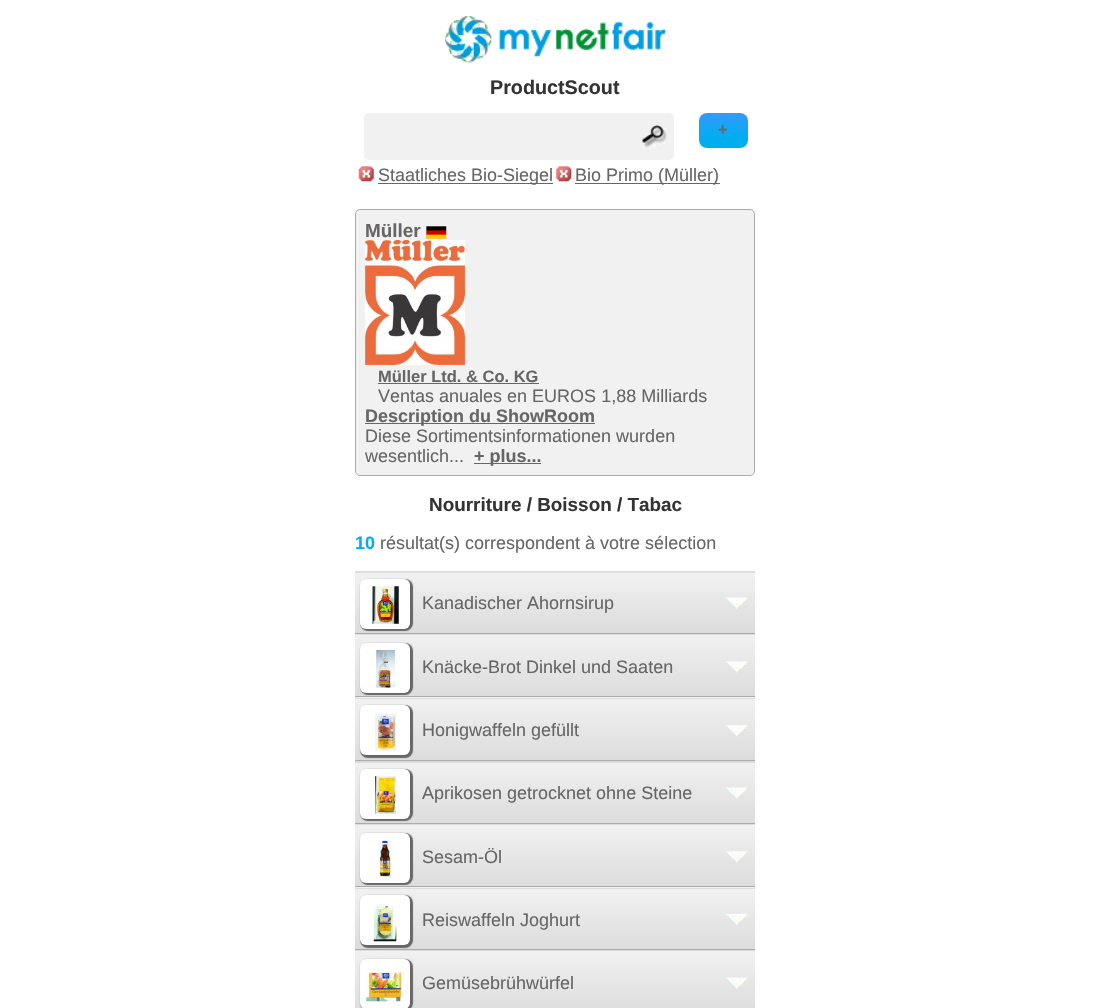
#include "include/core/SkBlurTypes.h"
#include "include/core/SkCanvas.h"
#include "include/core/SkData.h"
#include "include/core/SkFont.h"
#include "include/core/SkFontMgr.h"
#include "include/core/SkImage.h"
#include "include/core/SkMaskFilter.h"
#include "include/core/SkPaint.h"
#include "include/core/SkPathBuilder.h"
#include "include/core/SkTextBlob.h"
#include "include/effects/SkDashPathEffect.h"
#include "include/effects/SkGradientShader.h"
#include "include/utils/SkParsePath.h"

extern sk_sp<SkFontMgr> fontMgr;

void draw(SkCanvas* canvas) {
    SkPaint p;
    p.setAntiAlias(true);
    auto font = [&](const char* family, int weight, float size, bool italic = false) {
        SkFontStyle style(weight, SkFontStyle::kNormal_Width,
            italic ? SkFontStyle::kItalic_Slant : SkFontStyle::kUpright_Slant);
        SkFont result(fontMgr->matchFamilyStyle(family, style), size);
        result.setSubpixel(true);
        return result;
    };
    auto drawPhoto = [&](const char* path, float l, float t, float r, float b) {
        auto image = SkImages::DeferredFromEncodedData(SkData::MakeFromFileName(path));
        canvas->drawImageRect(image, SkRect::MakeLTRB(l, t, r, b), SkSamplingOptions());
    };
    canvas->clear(0xFFFFFFFF);
    drawPhoto("media/1.png", 444, 15, 667, 63);
    auto font1 = font("Liberation Sans", 700, 19.75f);
    p.setColor(0xFF333333);
    canvas->drawString("ProductScout", 490, 94, font1, p);
    p.setColor(0xFFF1F1F1);
    canvas->drawRoundRect(SkRect::MakeLTRB(364, 113, 674, 160), 5, 5, p);
    drawPhoto("media/2.png", 641, 124, 667, 148);
    {
        const SkColor colors[] = {0xFF3399FF, 0xFF00AEEF};
        const float stops[] = {0, 0.7f};
        const SkPoint ends[] = {{699, 113}, {699, 148}};
        p.setShader(SkGradientShader::MakeLinear(ends, colors, stops, 2, SkTileMode::kClamp));
        p.setAlpha(255);
    }
    canvas->drawRoundRect(SkRect::MakeLTRB(699, 113, 748, 148), 8, 8, p);
    auto font2 = font("Liberation Sans", 700, 16);
    p.setShader(nullptr);
    p.setColor(0xFF666666);
    canvas->drawString("+", 718, 135, font2, p);
    drawPhoto("media/3.png", 358, 166, 374, 182);
    canvas->drawRect(SkRect::MakeLTRB(378, 183, 553, 184), p);
    auto font3 = font("Liberation Sans", 400, 18);
    canvas->drawString("Staatliches Bio-Siegel", 378, 181, font3, p);
    drawPhoto("media/4.png", 556, 166, 572, 182);
    canvas->drawRect(SkRect::MakeLTRB(575, 183, 720, 184), p);
    canvas->drawString("Bio Primo (Müller)", 575, 181, font3, p);
    p.setColor(0xFFF1F1F1);
    canvas->drawRoundRect(SkRect::MakeLTRB(355.5f, 209.5f, 754.5f, 475.5f), 4.5f, 4.5f, p);
    p.setStyle(SkPaint::kStroke_Style);
    p.setStrokeWidth(1);
    p.setColor(0xFFABABAB);
    canvas->drawRoundRect(SkRect::MakeLTRB(355.5f, 209.5f, 754.5f, 475.5f), 4.5f, 4.5f, p);
    auto font4 = font("Liberation Sans", 700, 18.9f);
    p.setStyle(SkPaint::kFill_Style);
    p.setColor(0xFF666666);
    canvas->drawString("Müller", 365, 237, font4, p);
    drawPhoto("media/5.png", 426, 226, 447, 239);
    drawPhoto("media/6.png", 365, 240, 465, 365);
    auto font5 = font("Liberation Sans", 700, 16.5f);
    canvas->drawString("Müller Ltd. & Co. KG", 378, 382, font5, p);
    canvas->drawRect(SkRect::MakeLTRB(378, 383, 539, 384), p);
    canvas->drawString("Ventas anuales en EUROS 1,88 Milliards", 378, 402, font3, p);
    canvas->drawRect(SkRect::MakeLTRB(365, 423, 595, 424), p);
    auto font6 = font("Liberation Sans", 700, 18);
    canvas->drawString("Description du ShowRoom", 365, 422, font6, p);
    canvas->drawString("Diese Sortimentsinformationen wurden", 365, 442, font3, p);
    canvas->drawString("wesentlich...", 365, 462, font3, p);
    canvas->drawRect(SkRect::MakeLTRB(474, 463, 541, 464), p);
    canvas->drawString("+ plus...", 474, 462, font6, p);
    p.setColor(0xFF333333);
    canvas->drawString("Nourriture / Boisson / Tabac", 429, 511, font4, p);
    p.setColor(0xFF00AEEF);
    canvas->drawString("10", 355, 549, font6, p);
    p.setColor(0xFF666666);
    canvas->drawString("résultat(s) correspondent à votre sélection", 380, 549, font3, p);
    {
        const SkColor colors[] = {0xFFF1F1F1, 0xFFDCDCDC};
        const float stops[] = {0, 1};
        const SkPoint ends[] = {{355, 513}, {355, 573}};
        p.setShader(SkGradientShader::MakeLinear(ends, colors, stops, 2, SkTileMode::kClamp));
        p.setAlpha(255);
    }
    canvas->drawRect(SkRect::MakeLTRB(355, 571, 755, 573), p);
    {
        const SkColor colors[] = {0xFFF1F1F1, 0xFFDCDCDC};
        const float stops[] = {0, 1};
        const SkPoint ends[] = {{355, 573}, {355, 633}};
        p.setShader(SkGradientShader::MakeLinear(ends, colors, stops, 2, SkTileMode::kClamp));
        p.setAlpha(255);
    }
    canvas->drawRect(SkRect::MakeLTRB(355, 573, 755, 633), p);
    p.setShader(nullptr);
    p.setColor(0xFFABABAB);
    canvas->drawRect(SkRect::MakeLTRB(355, 633, 755, 634), p);
    p.setColor(0xFF666666);
    p.setMaskFilter(SkMaskFilter::MakeBlur(kNormal_SkBlurStyle, 0.5f));
    canvas->drawRoundRect(SkRect::MakeLTRB(360, 579, 413, 631), 8, 8, p);
    p.setMaskFilter(nullptr);
    p.setColor(0xFFFFFFFF);
    canvas->drawRoundRect(SkRect::MakeLTRB(360, 579, 410, 629), 6, 6, p);
    drawPhoto("media/7.png", 372, 586, 399, 624);
    p.setColor(0xFF666666);
    canvas->drawString("Kanadischer Ahornsirup", 422, 609, font3, p);
    drawPhoto("media/8.png", 726, 597, 748, 609);
    {
        const SkColor colors[] = {0xFFF1F1F1, 0xFFDCDCDC};
        const float stops[] = {0, 1};
        const SkPoint ends[] = {{355, 574}, {355, 635}};
        p.setShader(SkGradientShader::MakeLinear(ends, colors, stops, 2, SkTileMode::kClamp));
        p.setAlpha(255);
    }
    canvas->drawRect(SkRect::MakeLTRB(355, 634, 755, 635), p);
    {
        const SkColor colors[] = {0xFFF1F1F1, 0xFFDCDCDC};
        const float stops[] = {0, 1};
        const SkPoint ends[] = {{355, 635}, {355, 696}};
        p.setShader(SkGradientShader::MakeLinear(ends, colors, stops, 2, SkTileMode::kClamp));
        p.setAlpha(255);
    }
    canvas->drawRect(SkRect::MakeLTRB(355, 635, 755, 696), p);
    {
        const SkColor colors[] = {0xFFF1F1F1, 0xFFDCDCDC};
        const float stops[] = {0, 1};
        const SkPoint ends[] = {{355, 696}, {355, 758}};
        p.setShader(SkGradientShader::MakeLinear(ends, colors, stops, 2, SkTileMode::kClamp));
        p.setAlpha(255);
    }
    canvas->drawRect(SkRect::MakeLTRB(355, 697, 755, 698), p);
    p.setShader(nullptr);
    p.setColor(0xFFABABAB);
    canvas->drawRect(SkRect::MakeLTRB(355, 696, 755, 697), p);
    p.setColor(0xFF666666);
    p.setMaskFilter(SkMaskFilter::MakeBlur(kNormal_SkBlurStyle, 0.5f));
    canvas->drawRoundRect(SkRect::MakeLTRB(360, 643, 413, 695), 8, 8, p);
    p.setMaskFilter(nullptr);
    p.setColor(0xFFFFFFFF);
    canvas->drawRoundRect(SkRect::MakeLTRB(360, 643, 410, 693), 6, 6, p);
    drawPhoto("media/9.png", 376, 650, 395, 688);
    p.setColor(0xFF666666);
    canvas->drawString("Knäcke-Brot Dinkel und Saaten", 422, 673, font3, p);
    drawPhoto("media/10.png", 726, 661, 748, 673);
    {
        const SkColor colors[] = {0xFFF1F1F1, 0xFFDCDCDC};
        const float stops[] = {0, 1};
        const SkPoint ends[] = {{355, 638}, {355, 699}};
        p.setShader(SkGradientShader::MakeLinear(ends, colors, stops, 2, SkTileMode::kClamp));
        p.setAlpha(255);
    }
    canvas->drawRect(SkRect::MakeLTRB(355, 698, 755, 699), p);
    {
        const SkColor colors[] = {0xFFF1F1F1, 0xFFDCDCDC};
        const float stops[] = {0, 1};
        const SkPoint ends[] = {{355, 699}, {355, 760}};
        p.setShader(SkGradientShader::MakeLinear(ends, colors, stops, 2, SkTileMode::kClamp));
        p.setAlpha(255);
    }
    canvas->drawRect(SkRect::MakeLTRB(355, 699, 755, 760), p);
    p.setShader(nullptr);
    p.setColor(0xFFABABAB);
    canvas->drawRect(SkRect::MakeLTRB(355, 760, 755, 761), p);
    p.setColor(0xFF666666);
    p.setMaskFilter(SkMaskFilter::MakeBlur(kNormal_SkBlurStyle, 0.5f));
    canvas->drawRoundRect(SkRect::MakeLTRB(360, 705, 413, 758), 8, 8, p);
    p.setMaskFilter(nullptr);
    p.setColor(0xFFFFFFFF);
    canvas->drawRoundRect(SkRect::MakeLTRB(360, 705, 410, 755), 6, 6, p);
    drawPhoto("media/11.png", 375, 713, 397, 752);
    p.setColor(0xFF666666);
    canvas->drawString("Honigwaffeln gefüllt", 422, 736, font3, p);
    drawPhoto("media/12.png", 726, 725, 748, 737);
    {
        const SkColor colors[] = {0xFFF1F1F1, 0xFFDCDCDC};
        const float stops[] = {0, 1};
        const SkPoint ends[] = {{355, 703}, {355, 763}};
        p.setShader(SkGradientShader::MakeLinear(ends, colors, stops, 2, SkTileMode::kClamp));
        p.setAlpha(255);
    }
    canvas->drawRect(SkRect::MakeLTRB(355, 761, 755, 763), p);
    {
        const SkColor colors[] = {0xFFF1F1F1, 0xFFDCDCDC};
        const float stops[] = {0, 1};
        const SkPoint ends[] = {{355, 763}, {355, 823}};
        p.setShader(SkGradientShader::MakeLinear(ends, colors, stops, 2, SkTileMode::kClamp));
        p.setAlpha(255);
    }
    canvas->drawRect(SkRect::MakeLTRB(355, 763, 755, 823), p);
    p.setShader(nullptr);
    p.setColor(0xFFABABAB);
    canvas->drawRect(SkRect::MakeLTRB(355, 823, 755, 824), p);
    p.setColor(0xFF666666);
    p.setMaskFilter(SkMaskFilter::MakeBlur(kNormal_SkBlurStyle, 0.5f));
    canvas->drawRoundRect(SkRect::MakeLTRB(360, 769, 413, 821), 8, 8, p);
    p.setMaskFilter(nullptr);
    p.setColor(0xFFFFFFFF);
    canvas->drawRoundRect(SkRect::MakeLTRB(360, 769, 410, 819), 6, 6, p);
    drawPhoto("media/13.png", 375, 776, 397, 814);
    p.setColor(0xFF666666);
    canvas->drawString("Aprikosen getrocknet ohne Steine", 422, 799, font3, p);
    drawPhoto("media/8.png", 726, 787, 748, 799);
    {
        const SkColor colors[] = {0xFFF1F1F1, 0xFFDCDCDC};
        const float stops[] = {0, 1};
        const SkPoint ends[] = {{355, 764}, {355, 825}};
        p.setShader(SkGradientShader::MakeLinear(ends, colors, stops, 2, SkTileMode::kClamp));
        p.setAlpha(255);
    }
    canvas->drawRect(SkRect::MakeLTRB(355, 824, 755, 825), p);
    {
        const SkColor colors[] = {0xFFF1F1F1, 0xFFDCDCDC};
        const float stops[] = {0, 1};
        const SkPoint ends[] = {{355, 825}, {355, 886}};
        p.setShader(SkGradientShader::MakeLinear(ends, colors, stops, 2, SkTileMode::kClamp));
        p.setAlpha(255);
    }
    canvas->drawRect(SkRect::MakeLTRB(355, 825, 755, 886), p);
    {
        const SkColor colors[] = {0xFFF1F1F1, 0xFFDCDCDC};
        const float stops[] = {0, 1};
        const SkPoint ends[] = {{355, 886}, {355, 948}};
        p.setShader(SkGradientShader::MakeLinear(ends, colors, stops, 2, SkTileMode::kClamp));
        p.setAlpha(255);
    }
    canvas->drawRect(SkRect::MakeLTRB(355, 887, 755, 888), p);
    p.setShader(nullptr);
    p.setColor(0xFFABABAB);
    canvas->drawRect(SkRect::MakeLTRB(355, 886, 755, 887), p);
    p.setColor(0xFF666666);
    p.setMaskFilter(SkMaskFilter::MakeBlur(kNormal_SkBlurStyle, 0.5f));
    canvas->drawRoundRect(SkRect::MakeLTRB(360, 833, 413, 885), 8, 8, p);
    p.setMaskFilter(nullptr);
    p.setColor(0xFFFFFFFF);
    canvas->drawRoundRect(SkRect::MakeLTRB(360, 833, 410, 883), 6, 6, p);
    drawPhoto("media/14.png", 378, 840, 392, 878);
    p.setColor(0xFF666666);
    canvas->drawString("Sesam-Öl", 422, 863, font3, p);
    drawPhoto("media/10.png", 726, 851, 748, 863);
    {
        const SkColor colors[] = {0xFFF1F1F1, 0xFFDCDCDC};
        const float stops[] = {0, 1};
        const SkPoint ends[] = {{355, 829}, {355, 889}};
        p.setShader(SkGradientShader::MakeLinear(ends, colors, stops, 2, SkTileMode::kClamp));
        p.setAlpha(255);
    }
    canvas->drawRect(SkRect::MakeLTRB(355, 888, 755, 889), p);
    {
        const SkColor colors[] = {0xFFF1F1F1, 0xFFDCDCDC};
        const float stops[] = {0, 1};
        const SkPoint ends[] = {{355, 889}, {355, 949}};
        p.setShader(SkGradientShader::MakeLinear(ends, colors, stops, 2, SkTileMode::kClamp));
        p.setAlpha(255);
    }
    canvas->drawRect(SkRect::MakeLTRB(355, 889, 755, 949), p);
    p.setShader(nullptr);
    p.setColor(0xFFABABAB);
    canvas->drawRect(SkRect::MakeLTRB(355, 949, 755, 950), p);
    {
        const SkColor colors[] = {0xFFF1F1F1, 0xFFDCDCDC};
        const float stops[] = {0, 1};
        const SkPoint ends[] = {{355, 890}, {355, 951}};
        p.setShader(SkGradientShader::MakeLinear(ends, colors, stops, 2, SkTileMode::kClamp));
        p.setAlpha(255);
    }
    canvas->drawRect(SkRect::MakeLTRB(355, 950, 755, 951), p);
    p.setShader(nullptr);
    p.setColor(0xFF666666);
    p.setMaskFilter(SkMaskFilter::MakeBlur(kNormal_SkBlurStyle, 0.5f));
    canvas->drawRoundRect(SkRect::MakeLTRB(360, 895, 413, 948), 8, 8, p);
    p.setMaskFilter(nullptr);
    p.setColor(0xFFFFFFFF);
    canvas->drawRoundRect(SkRect::MakeLTRB(360, 895, 410, 945), 6, 6, p);
    drawPhoto("media/15.png", 373, 903, 397, 942);
    p.setColor(0xFF666666);
    canvas->drawString("Reiswaffeln Joghurt", 422, 926, font3, p);
    drawPhoto("media/16.png", 726, 913, 748, 925);
    {
        const SkColor colors[] = {0xFFF1F1F1, 0xFFDCDCDC};
        const float stops[] = {0, 1};
        const SkPoint ends[] = {{355, 951}, {355, 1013}};
        p.setShader(SkGradientShader::MakeLinear(ends, colors, stops, 2, SkTileMode::kClamp));
        p.setAlpha(255);
    }
    canvas->drawRect(SkRect::MakeLTRB(355, 951, 755, 1008), p);
    p.setShader(nullptr);
    p.setColor(0xFF666666);
    p.setMaskFilter(SkMaskFilter::MakeBlur(kNormal_SkBlurStyle, 0.5f));
    canvas->drawRoundRect(SkRect::MakeLTRB(360, 959, 413, 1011), 8, 8, p);
    p.setMaskFilter(nullptr);
    p.setColor(0xFFFFFFFF);
    canvas->drawRoundRect(SkRect::MakeLTRB(360, 959, 410, 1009), 6, 6, p);
    drawPhoto("media/17.png", 366, 969, 404, 1002);
    p.setColor(0xFF666666);
    canvas->drawString("Gemüsebrühwürfel", 422, 989, font3, p);
    drawPhoto("media/18.png", 726, 977, 748, 989);
}
